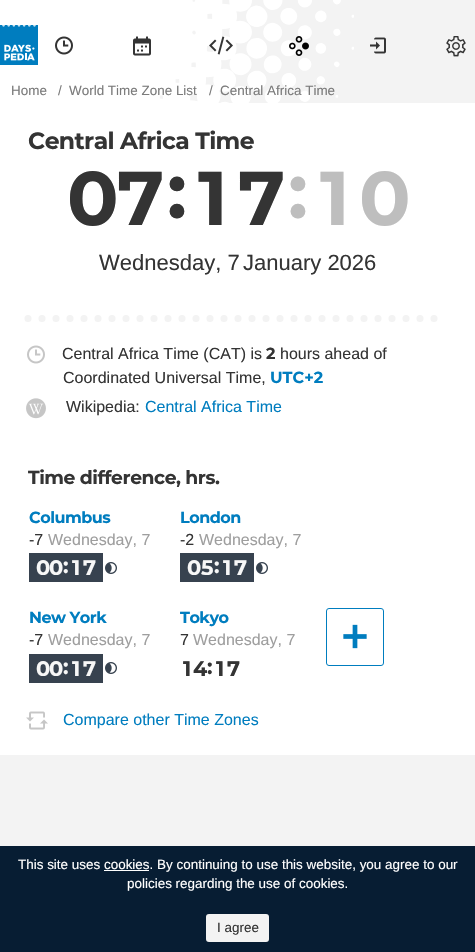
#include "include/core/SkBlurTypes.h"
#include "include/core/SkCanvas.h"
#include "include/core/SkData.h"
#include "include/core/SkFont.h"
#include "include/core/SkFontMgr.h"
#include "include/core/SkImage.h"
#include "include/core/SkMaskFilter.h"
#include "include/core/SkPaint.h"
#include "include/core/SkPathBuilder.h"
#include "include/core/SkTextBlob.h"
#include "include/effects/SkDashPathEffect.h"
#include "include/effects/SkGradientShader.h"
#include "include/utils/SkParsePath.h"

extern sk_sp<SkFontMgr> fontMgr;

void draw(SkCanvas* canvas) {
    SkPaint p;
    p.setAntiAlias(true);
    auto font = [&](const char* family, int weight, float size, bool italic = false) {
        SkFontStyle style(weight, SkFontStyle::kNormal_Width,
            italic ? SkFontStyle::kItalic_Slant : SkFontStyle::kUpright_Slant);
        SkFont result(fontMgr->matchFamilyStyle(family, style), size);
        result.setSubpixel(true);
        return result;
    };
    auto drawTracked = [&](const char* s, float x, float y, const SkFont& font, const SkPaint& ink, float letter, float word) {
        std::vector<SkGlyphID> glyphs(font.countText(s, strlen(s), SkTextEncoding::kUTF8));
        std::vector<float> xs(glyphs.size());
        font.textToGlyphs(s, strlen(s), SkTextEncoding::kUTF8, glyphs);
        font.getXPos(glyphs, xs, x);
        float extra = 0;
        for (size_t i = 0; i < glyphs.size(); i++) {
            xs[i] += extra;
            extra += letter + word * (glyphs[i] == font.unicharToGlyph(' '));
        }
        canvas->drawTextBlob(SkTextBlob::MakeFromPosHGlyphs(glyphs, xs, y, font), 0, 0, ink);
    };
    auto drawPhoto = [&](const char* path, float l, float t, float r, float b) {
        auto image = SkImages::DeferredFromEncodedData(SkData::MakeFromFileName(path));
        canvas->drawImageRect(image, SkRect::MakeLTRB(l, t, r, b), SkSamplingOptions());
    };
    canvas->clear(0xFFF3F3F3);
    drawPhoto("media/1.png", 0, 0, 14, 103);
    drawPhoto("media/2.png", 14, 0, 354, 103);
    p.setColor(0xFF007DBF);
    canvas->drawRect(SkRect::MakeLTRB(0, 25, 38, 65), p);
    drawPhoto("media/3.png", 2, 25, 36, 61);
    drawPhoto("media/4.png", 55, 36, 73, 55);
    drawPhoto("media/5.png", 133, 36, 151, 56);
    drawPhoto("media/6.png", 209, 36, 233, 55);
    drawPhoto("media/7.png", 289, 36, 309, 56);
    drawPhoto("media/8.png", 370, 37, 386, 54);
    drawPhoto("media/9.png", 446, 36, 466, 57);
    auto font1 = font("Liberation Sans", 400, 13.45f);
    p.setColor(0xFF7B7B7B);
    {
        const struct { const char* s; float x, y; } items[] = {
            {"Home", 11, 95},
            {"/", 58, 95},
            {"World Time Zone List", 69, 95},
            {"/", 209, 95},
            {"Central Africa Time", 220, 95},
        };
        for (auto [s, x, y] : items) {
            canvas->drawString(s, x, y, font1, p);
        }
    }
    p.setColor(0xFFFFFFFF);
    canvas->drawRect(SkRect::MakeLTRB(0, 103, 475, 755), p);
    auto font2 = font("Montserrat", 700, 23.5f);
    p.setColor(0xFF343434);
    drawTracked("Central Africa Time", 28, 149, font2, p, -0.6f, 0);
    auto font3 = font("Montserrat", 700, 76);
    {
        const struct { const char* s; float x, y; } items[] = {
            {"0", 67, 225},
            {"7", 117, 225},
            {":", 167, 218},
            {"1", 198, 225},
            {"7", 238, 225},
        };
        for (auto [s, x, y] : items) {
            canvas->drawString(s, x, y, font3, p);
        }
    }
    p.setColor(0xFFBEBEBE);
    {
        const struct { const char* s; float x, y; } items[] = {
            {":", 288, 218},
            {"1", 320, 225},
            {"0", 359, 225},
        };
        for (auto [s, x, y] : items) {
            canvas->drawString(s, x, y, font3, p);
        }
    }
    auto font4 = font("Liberation Sans", 400, 22);
    p.setColor(0xFF343434);
    canvas->drawString("Wednesday, 7", 99, 270, font4, p);
    canvas->drawString("January 2026", 243, 270, font4, p);
    p.setStyle(SkPaint::kStroke_Style);
    p.setStrokeWidth(7);
    p.setStrokeCap(SkPaint::kRound_Cap);
    p.setColor(0xFFF3F3F3);
    p.setPathEffect(SkDashPathEffect::Make({{0, 14}}, 0));
    canvas->drawPath(SkPathBuilder().moveTo(28, 318.5f).lineTo(447, 318.5f).detach(), p);
    p.setPathEffect(nullptr);
    drawPhoto("media/10.png", 27, 345, 45, 364);
    auto font5 = font("Liberation Sans", 400, 16);
    p.setStyle(SkPaint::kFill_Style);
    p.setColor(0xFF343434);
    canvas->drawString("Central Africa Time (CAT) is", 62, 359, font5, p);
    auto font6 = font("Montserrat", 700, 16);
    canvas->drawString("2", 266, 359, font6, p);
    canvas->drawString("hours ahead of", 280, 359, font5, p);
    canvas->drawString("Coordinated Universal Time,", 63, 383, font5, p);
    p.setColor(0xFF007DBF);
    canvas->drawString("UTC+2", 270, 383, font6, p);
    drawPhoto("media/11.png", 26, 398, 46, 419);
    p.setColor(0xFF343434);
    canvas->drawString("Wikipedia:", 66, 412, font5, p);
    p.setColor(0xFF007DBF);
    canvas->drawString("Central Africa Time", 145, 412, font5, p);
    auto font7 = font("Montserrat", 700, 18.75f);
    p.setColor(0xFF343434);
    drawTracked("Time difference, hrs.", 28, 484, font7, p, -0.45f, 0);
    p.setColor(0xFF007DBF);
    drawTracked("Columbus", 29, 523, font6, p, -0.5f, 0);
    p.setColor(0xFF343434);
    canvas->drawString("-7", 29, 545, font5, p);
    p.setColor(0xFF9E9E9E);
    canvas->drawString("Wednesday, 7", 48, 545, font5, p);
    p.setColor(0xFF37424F);
    canvas->drawRect(SkRect::MakeLTRB(29, 553, 103, 582), p);
    canvas->save();
    canvas->clipRect(SkRect::MakeLTRB(36, 560, 63, 575));
    auto font8 = font("Montserrat", 700, 21);
    p.setColor(0xFFF7F7F7);
    canvas->drawString("0", 36, 575, font8, p);
    canvas->drawString("0", 49, 575, font8, p);
    canvas->restore();
    {
        const struct { const char* s; float x, y; } items[] = {
            {":", 63, 573},
            {"1", 72, 575},
            {"7", 83, 575},
        };
        for (auto [s, x, y] : items) {
            canvas->drawString(s, x, y, font8, p);
        }
    }
    drawPhoto("media/12.png", 105, 562, 117, 574);
    p.setColor(0xFF007DBF);
    drawTracked("London", 180, 523, font6, p, -0.5f, 0);
    p.setColor(0xFF343434);
    canvas->drawString("-2", 180, 545, font5, p);
    p.setColor(0xFF9E9E9E);
    canvas->drawString("Wednesday, 7", 199, 545, font5, p);
    p.setColor(0xFF37424F);
    canvas->drawRect(SkRect::MakeLTRB(180, 553, 254, 582), p);
    canvas->save();
    canvas->clipRect(SkRect::MakeLTRB(187, 560, 214, 575));
    p.setColor(0xFFF7F7F7);
    canvas->drawString("0", 187, 575, font8, p);
    canvas->drawString("5", 201, 575, font8, p);
    canvas->restore();
    {
        const struct { const char* s; float x, y; } items[] = {
            {":", 214, 573},
            {"1", 223, 575},
            {"7", 234, 575},
        };
        for (auto [s, x, y] : items) {
            canvas->drawString(s, x, y, font8, p);
        }
    }
    drawPhoto("media/12.png", 256, 562, 268, 574);
    p.setColor(0xFF007DBF);
    drawTracked("New York", 29, 623, font6, p, -0.5f, 0);
    p.setColor(0xFF343434);
    canvas->drawString("-7", 29, 645, font5, p);
    p.setColor(0xFF9E9E9E);
    canvas->drawString("Wednesday, 7", 48, 645, font5, p);
    p.setColor(0xFF37424F);
    canvas->drawRect(SkRect::MakeLTRB(29, 654, 103, 683), p);
    canvas->save();
    canvas->clipRect(SkRect::MakeLTRB(36, 661, 63, 676));
    p.setColor(0xFFF7F7F7);
    canvas->drawString("0", 36, 676, font8, p);
    canvas->drawString("0", 49, 676, font8, p);
    canvas->restore();
    {
        const struct { const char* s; float x, y; } items[] = {
            {":", 63, 674},
            {"1", 72, 676},
            {"7", 83, 676},
        };
        for (auto [s, x, y] : items) {
            canvas->drawString(s, x, y, font8, p);
        }
    }
    drawPhoto("media/12.png", 105, 662, 117, 674);
    p.setColor(0xFF007DBF);
    drawTracked("Tokyo", 180, 623, font6, p, -0.5f, 0);
    p.setColor(0xFF343434);
    canvas->drawString("7", 180, 645, font5, p);
    p.setColor(0xFF9E9E9E);
    canvas->drawString("Wednesday, 7", 193, 645, font5, p);
    p.setColor(0xFF343434);
    canvas->drawString("1", 183, 676, font8, p);
    canvas->save();
    canvas->clipRect(SkRect::MakeLTRB(180, 661, 207, 676));
    canvas->drawString("4", 193, 676, font8, p);
    canvas->restore();
    {
        const struct { const char* s; float x, y; } items[] = {
            {":", 207, 674},
            {"1", 216, 676},
            {"7", 227, 676},
        };
        for (auto [s, x, y] : items) {
            canvas->drawString(s, x, y, font8, p);
        }
    }
    p.setStyle(SkPaint::kStroke_Style);
    p.setStrokeWidth(1);
    p.setStrokeCap(SkPaint::kButt_Cap);
    p.setColor(0xFF007DBF);
    canvas->drawRoundRect(SkRect::MakeLTRB(326.5f, 608.5f, 383.5f, 665.5f), 2.5f, 2.5f, p);
    drawPhoto("media/13.png", 343, 624, 367, 649);
    drawPhoto("media/14.png", 26, 711, 48, 730);
    p.setStyle(SkPaint::kFill_Style);
    canvas->drawString("Compare other Time Zones", 63, 725, font5, p);
    p.setColor(0xFF071D33);
    canvas->drawRect(SkRect::MakeLTRB(0, 846, 475, 952), p);
    p.setColor(0xFFFFFFFF);
    canvas->drawString("This site uses cookies. By continuing to use this website, you agree to our", 18, 869, font1, p);
    canvas->drawRect(SkRect::MakeLTRB(104, 870, 149, 871), p);
    canvas->drawString("policies regarding the use of cookies.", 127, 888, font1, p);
    p.setColor(0xFFF3F3F3);
    canvas->drawRoundRect(SkRect::MakeLTRB(206, 914, 269, 942), 3, 3, p);
    p.setColor(0xFF343434);
    canvas->drawString("I agree", 217, 932, font1, p);
}
